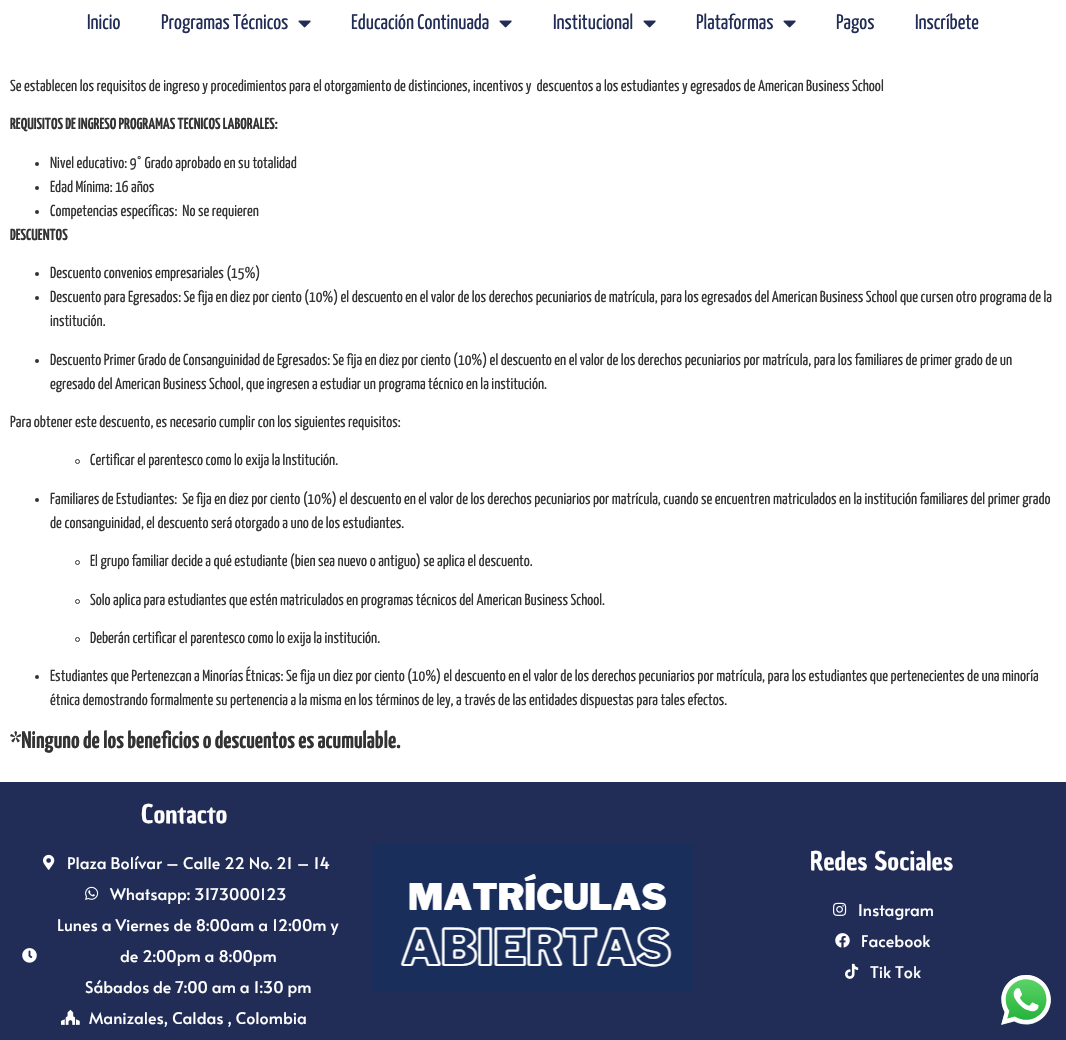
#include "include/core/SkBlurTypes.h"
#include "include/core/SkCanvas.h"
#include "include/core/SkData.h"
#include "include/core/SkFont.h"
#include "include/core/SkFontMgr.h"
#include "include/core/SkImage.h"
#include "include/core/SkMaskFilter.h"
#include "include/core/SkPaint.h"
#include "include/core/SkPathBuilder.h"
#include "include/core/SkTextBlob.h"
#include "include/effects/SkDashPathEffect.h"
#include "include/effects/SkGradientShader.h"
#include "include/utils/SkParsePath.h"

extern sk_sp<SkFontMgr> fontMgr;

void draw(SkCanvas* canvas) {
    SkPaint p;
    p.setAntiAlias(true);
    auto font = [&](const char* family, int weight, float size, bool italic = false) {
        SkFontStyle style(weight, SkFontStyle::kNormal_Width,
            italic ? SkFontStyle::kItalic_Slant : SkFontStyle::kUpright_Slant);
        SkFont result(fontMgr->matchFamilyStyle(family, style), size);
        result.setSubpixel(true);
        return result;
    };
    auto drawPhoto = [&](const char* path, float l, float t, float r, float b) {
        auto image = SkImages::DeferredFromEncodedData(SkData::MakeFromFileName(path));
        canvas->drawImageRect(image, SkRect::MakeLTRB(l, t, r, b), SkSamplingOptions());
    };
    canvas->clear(0xFFFFFFFF);
    auto font1 = font("Yanone Kaffeesatz", 400, 21);
    p.setColor(0xFF222D57);
    canvas->drawString("Inicio", 87, 29, font1, p);
    canvas->drawString("Programas Técnicos", 161, 29, font1, p);
    drawPhoto("media/1.png", 298, 20, 311, 28);
    canvas->drawString("Educación Continuada", 351, 29, font1, p);
    drawPhoto("media/1.png", 499, 20, 512, 28);
    canvas->drawString("Institucional", 553, 29, font1, p);
    drawPhoto("media/1.png", 643, 20, 656, 28);
    canvas->drawString("Plataformas", 696, 29, font1, p);
    drawPhoto("media/1.png", 783, 20, 796, 28);
    canvas->drawString("Pagos", 836, 29, font1, p);
    canvas->drawString("Inscríbete", 915, 29, font1, p);
    auto font2 = font("Yanone Kaffeesatz", 400, 16);
    p.setColor(0xFF333333);
    canvas->drawString("Se establecen los requisitos de ingreso y procedimientos para el otorgamiento de distinciones, incentivos y  descuentos a los estudiantes y egresados de American Business School", 10, 91, font2, p);
    auto font3 = font("Yanone Kaffeesatz", 700, 16);
    canvas->drawString("REQUISITOS DE INGRESO PROGRAMAS TECNICOS LABORALES:", 10, 129, font3, p);
    canvas->drawCircle(37, 164, 2, p);
    canvas->drawString("Nivel educativo: 9° Grado aprobado en su totalidad", 50, 168, font2, p);
    canvas->drawCircle(37, 188, 2, p);
    canvas->drawString("Edad Mínima: 16 años", 50, 192, font2, p);
    canvas->drawCircle(37, 212, 2, p);
    canvas->drawString("Competencias específicas:  No se requieren", 50, 216, font2, p);
    canvas->drawString("DESCUENTOS", 10, 240, font3, p);
    canvas->drawCircle(37, 274, 2, p);
    canvas->drawString("Descuento convenios empresariales (15%)", 50, 278, font2, p);
    canvas->drawCircle(37, 298, 2, p);
    canvas->drawString("Descuento para Egresados: Se fija en diez por ciento (10%) el descuento en el valor de los derechos pecuniarios de matrícula, para los egresados del American Business School que cursen otro programa de la", 50, 302, font2, p);
    canvas->drawString("institución.", 50, 326, font2, p);
    canvas->drawCircle(37, 361, 2, p);
    {
        const struct { const char* s; float x, y; } items[] = {
            {"Descuento Primer Grado de Consanguinidad de Egresados: Se fija en diez por ciento (10%) el descuento en el valor de los derechos pecuniarios por matrícula, para los familiares de primer grado de un", 50, 365},
            {"egresado del American Business School, que ingresen a estudiar un programa técnico en la institución.", 50, 389},
            {"Para obtener este descuento, es necesario cumplir con los siguientes requisitos:", 10, 427},
        };
        for (auto [s, x, y] : items) {
            canvas->drawString(s, x, y, font2, p);
        }
    }
    p.setStyle(SkPaint::kStroke_Style);
    p.setStrokeWidth(1);
    canvas->drawCircle(77.5f, 461.5f, 2, p);
    p.setStyle(SkPaint::kFill_Style);
    canvas->drawString("Certificar el parentesco como lo exija la Institución.", 90, 465, font2, p);
    canvas->drawCircle(37, 500, 2, p);
    canvas->drawString("Familiares de Estudiantes:  Se fija en diez por ciento (10%) el descuento en el valor de los derechos pecuniarios por matrícula, cuando se encuentren matriculados en la institución familiares del primer grado", 50, 504, font2, p);
    canvas->drawString("de consanguinidad, el descuento será otorgado a uno de los estudiantes.", 50, 528, font2, p);
    p.setStyle(SkPaint::kStroke_Style);
    canvas->drawCircle(77.5f, 562.5f, 2, p);
    p.setStyle(SkPaint::kFill_Style);
    canvas->drawString("El grupo familiar decide a qué estudiante (bien sea nuevo o antiguo) se aplica el descuento.", 90, 566, font2, p);
    p.setStyle(SkPaint::kStroke_Style);
    canvas->drawCircle(77.5f, 601.5f, 2, p);
    p.setStyle(SkPaint::kFill_Style);
    canvas->drawString("Solo aplica para estudiantes que estén matriculados en programas técnicos del American Business School.", 90, 605, font2, p);
    p.setStyle(SkPaint::kStroke_Style);
    canvas->drawCircle(77.5f, 639.5f, 2, p);
    p.setStyle(SkPaint::kFill_Style);
    canvas->drawString("Deberán certificar el parentesco como lo exija la institución.", 90, 643, font2, p);
    canvas->drawCircle(37, 677, 2, p);
    canvas->drawString("Estudiantes que Pertenezcan a Minorías Étnicas: Se fija un diez por ciento (10%) el descuento en el valor de los derechos pecuniarios por matrícula, para los estudiantes que pertenecientes de una minoría", 50, 681, font2, p);
    canvas->drawString("étnica demostrando formalmente su pertenencia a la misma en los términos de ley, a través de las entidades dispuestas para tales efectos.", 50, 705, font2, p);
    auto font4 = font("Yanone Kaffeesatz", 700, 24);
    canvas->drawString("*Ninguno de los beneficios o descuentos es acumulable.", 10, 748, font4, p);
    p.setColor(0xFF222D57);
    canvas->drawRect(SkRect::MakeLTRB(0, 782, 1066, 1040), p);
    auto font5 = font("Chau Philomene One", 400, 25);
    p.setColor(0xFFFFFFFF);
    canvas->drawString("Contacto", 141, 823, font5, p);
    drawPhoto("media/2.png", 43, 854, 55, 870);
    auto font6 = font("Alata", 400, 16);
    canvas->drawString("Plaza Bolívar – Calle 22 No. 21 – 14", 67, 869, font6, p);
    drawPhoto("media/3.png", 85, 886, 99, 900);
    canvas->drawString("Whatsapp: 3173000123", 110, 900, font6, p);
    drawPhoto("media/4.png", 22, 948, 37, 963);
    {
        const struct { const char* s; float x, y; } items[] = {
            {"Lunes a Viernes de 8:00am a 12:00m y", 57, 931},
            {"de 2:00pm a 8:00pm", 120, 962},
            {"Sábados de 7:00 am a 1:30 pm", 85, 993},
        };
        for (auto [s, x, y] : items) {
            canvas->drawString(s, x, y, font6, p);
        }
    }
    drawPhoto("media/5.png", 61, 1009, 80, 1025);
    canvas->drawString("Manizales, Caldas , Colombia", 89, 1024, font6, p);
    drawPhoto("media/6.png", 372, 843, 694, 992);
    canvas->drawString("Redes Sociales", 810, 870, font5, p);
    drawPhoto("media/7.png", 833, 902, 847, 916);
    canvas->drawString("Instagram", 858, 916, font6, p);
    drawPhoto("media/8.png", 835, 933, 850, 948);
    canvas->drawString("Facebook", 861, 947, font6, p);
    drawPhoto("media/9.png", 845, 963, 859, 979);
    canvas->drawString("Tik Tok", 870, 978, font6, p);
    drawPhoto("media/10.png", 1001, 975, 1051, 1025);
}
